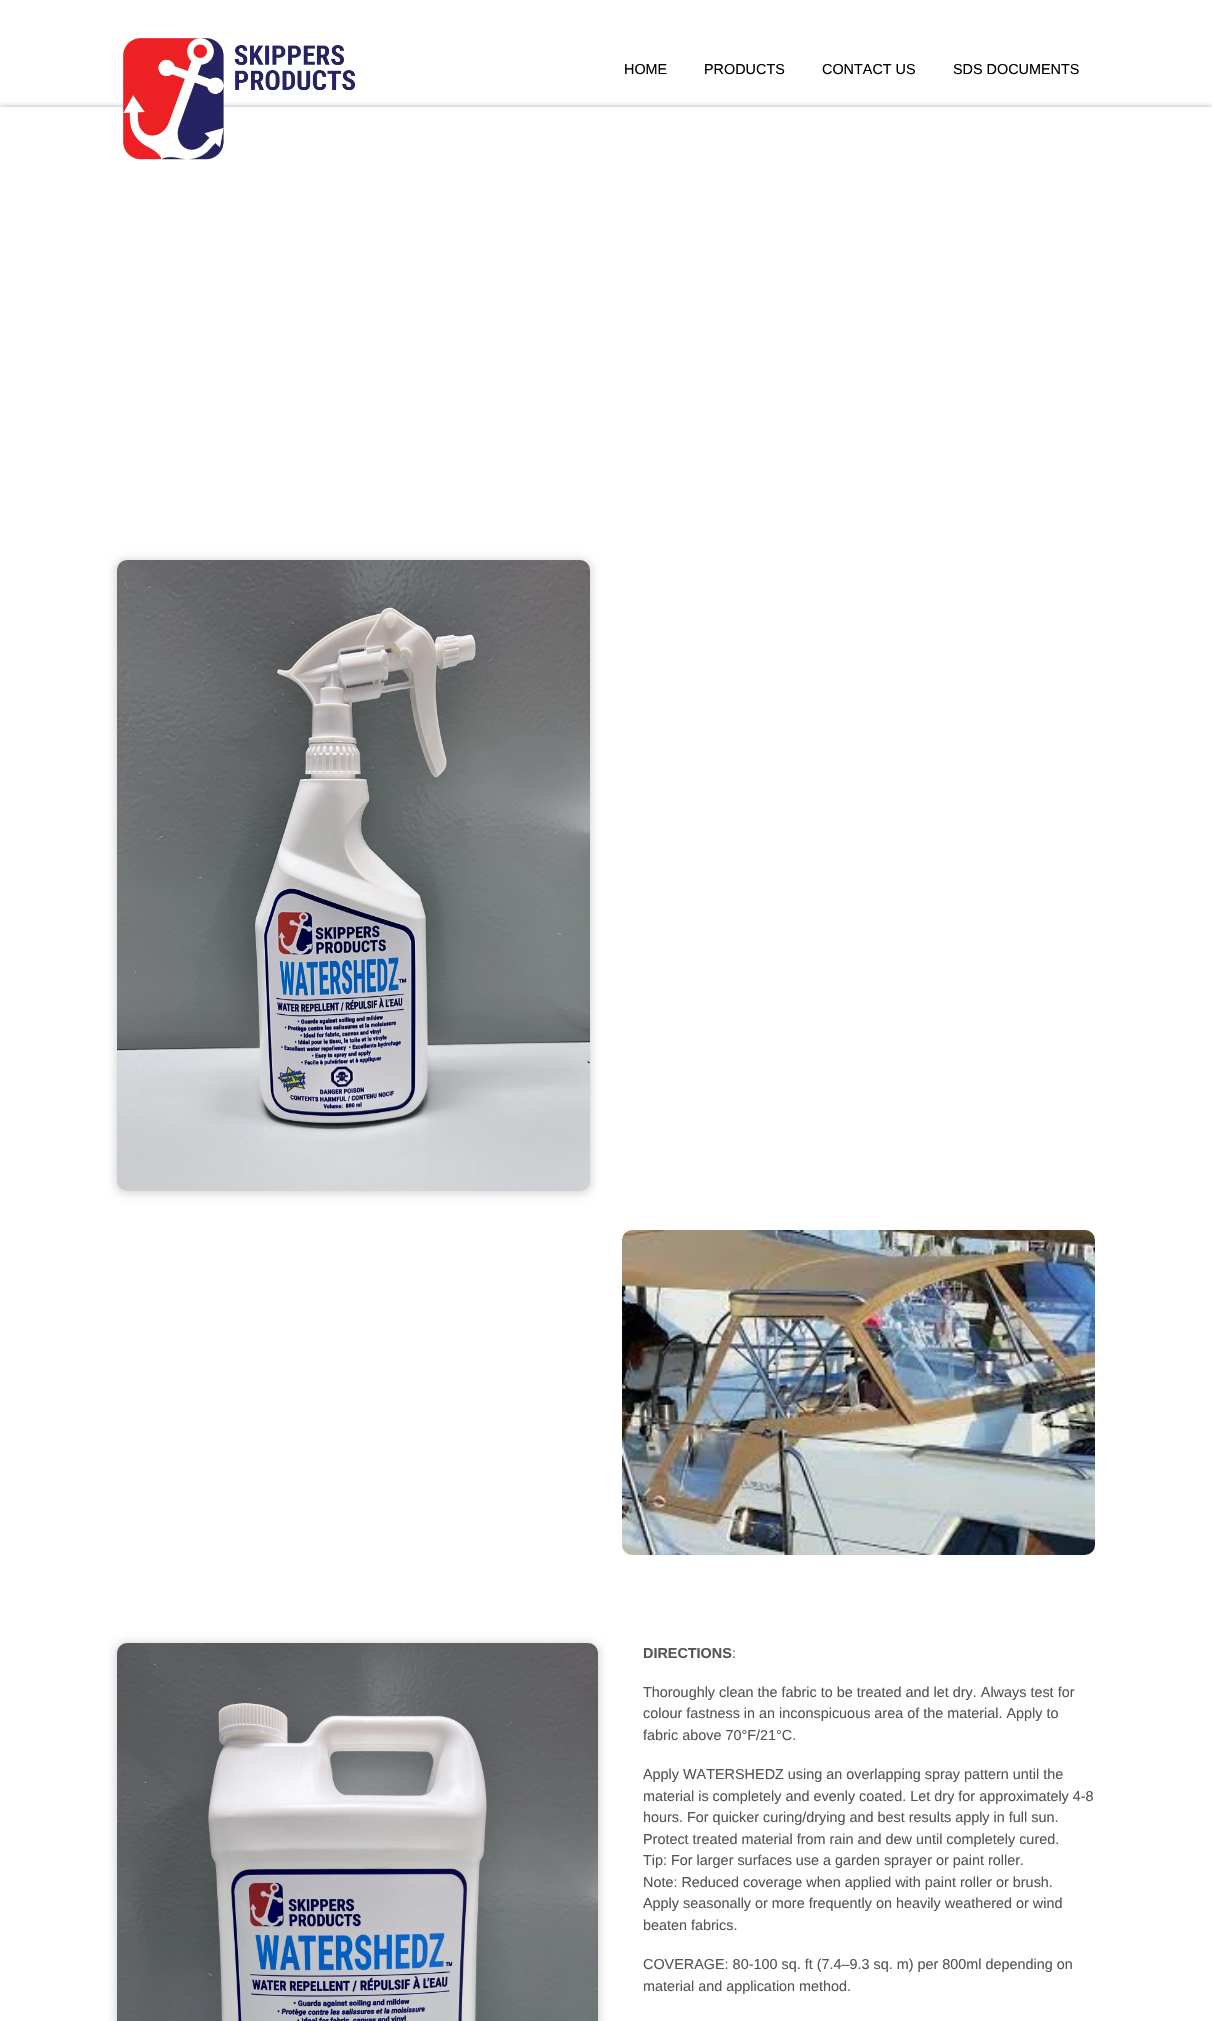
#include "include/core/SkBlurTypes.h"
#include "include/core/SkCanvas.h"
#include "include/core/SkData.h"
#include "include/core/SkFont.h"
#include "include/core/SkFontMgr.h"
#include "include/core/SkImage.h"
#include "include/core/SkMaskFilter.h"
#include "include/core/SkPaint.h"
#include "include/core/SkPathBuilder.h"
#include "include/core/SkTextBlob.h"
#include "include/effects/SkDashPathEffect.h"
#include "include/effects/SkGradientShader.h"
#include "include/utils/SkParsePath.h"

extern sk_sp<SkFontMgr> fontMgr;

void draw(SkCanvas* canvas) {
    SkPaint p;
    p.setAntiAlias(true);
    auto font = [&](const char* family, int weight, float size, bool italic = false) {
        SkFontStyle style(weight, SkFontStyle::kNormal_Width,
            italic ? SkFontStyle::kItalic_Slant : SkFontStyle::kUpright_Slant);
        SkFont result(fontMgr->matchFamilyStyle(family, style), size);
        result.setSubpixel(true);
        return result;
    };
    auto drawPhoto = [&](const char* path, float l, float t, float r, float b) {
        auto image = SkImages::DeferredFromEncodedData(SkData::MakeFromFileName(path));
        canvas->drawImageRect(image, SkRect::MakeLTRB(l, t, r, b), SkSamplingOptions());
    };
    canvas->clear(0xFFFFFFFF);
    p.setColor(0x4D000000);
    p.setMaskFilter(SkMaskFilter::MakeBlur(kNormal_SkBlurStyle, 3));
    canvas->drawRect(SkRect::MakeLTRB(0, 107, 1212, 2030), p);
    p.setMaskFilter(nullptr);
    p.setColor(0xFFFFFFFF);
    canvas->drawRect(SkRect::MakeLTRB(0, 107, 1212, 2021), p);
    drawPhoto("media/1.png", 123, 38, 356, 160);
    auto font1 = font("Liberation Sans", 400, 14.4f);
    p.setColor(0xFF000000);
    {
        const struct { const char* s; float x, y; } items[] = {
            {"HOME", 624, 74},
            {"PRODUCTS", 704, 74},
            {"CONTACT US", 822, 74},
            {"SDS DOCUMENTS", 953, 74},
        };
        for (auto [s, x, y] : items) {
            canvas->drawString(s, x, y, font1, p);
        }
    }
    p.setColor(0x26000000);
    p.setMaskFilter(SkMaskFilter::MakeBlur(kNormal_SkBlurStyle, 4));
    canvas->drawRoundRect(SkRect::MakeLTRB(115, 559, 592, 1194), 12, 12, p);
    p.setMaskFilter(nullptr);
    drawPhoto("media/2.png", 117, 560, 590, 1191);
    drawPhoto("media/3.png", 622, 1230, 1095, 1555);
    p.setMaskFilter(SkMaskFilter::MakeBlur(kNormal_SkBlurStyle, 4));
    canvas->drawRoundRect(SkRect::MakeLTRB(115, 1642, 600, 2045), 12, 12, p);
    p.setMaskFilter(nullptr);
    drawPhoto("media/4.png", 117, 1643, 598, 2021);
    auto font2 = font("Liberation Sans", 700, 14.4f);
    p.setColor(0xFF555555);
    canvas->drawString("DIRECTIONS", 643, 1658, font2, p);
    {
        const struct { const char* s; float x, y; } items[] = {
            {":", 732, 1658},
            {"Thoroughly clean the fabric to be treated and let dry. Always test for", 643, 1697},
            {"colour fastness in an inconspicuous area of the material. Apply to", 643, 1718},
            {"fabric above 70°F/21°C.", 643, 1740},
            {"Apply WATERSHEDZ using an overlapping spray pattern until the", 643, 1779},
            {"material is completely and evenly coated. Let dry for approximately 4-8", 643, 1801},
            {"hours. For quicker curing/drying and best results apply in full sun.", 643, 1822},
            {"Protect treated material from rain and dew until completely cured.", 643, 1844},
            {"Tip: For larger surfaces use a garden sprayer or paint roller.", 643, 1865},
            {"Note: Reduced coverage when applied with paint roller or brush.", 643, 1887},
            {"Apply seasonally or more frequently on heavily weathered or wind", 643, 1908},
            {"beaten fabrics.", 643, 1930},
            {"COVERAGE: 80-100 sq. ft (7.4–9.3 sq. m) per 800ml depending on", 643, 1969},
            {"material and application method.", 643, 1991},
        };
        for (auto [s, x, y] : items) {
            canvas->drawString(s, x, y, font1, p);
        }
    }
}
